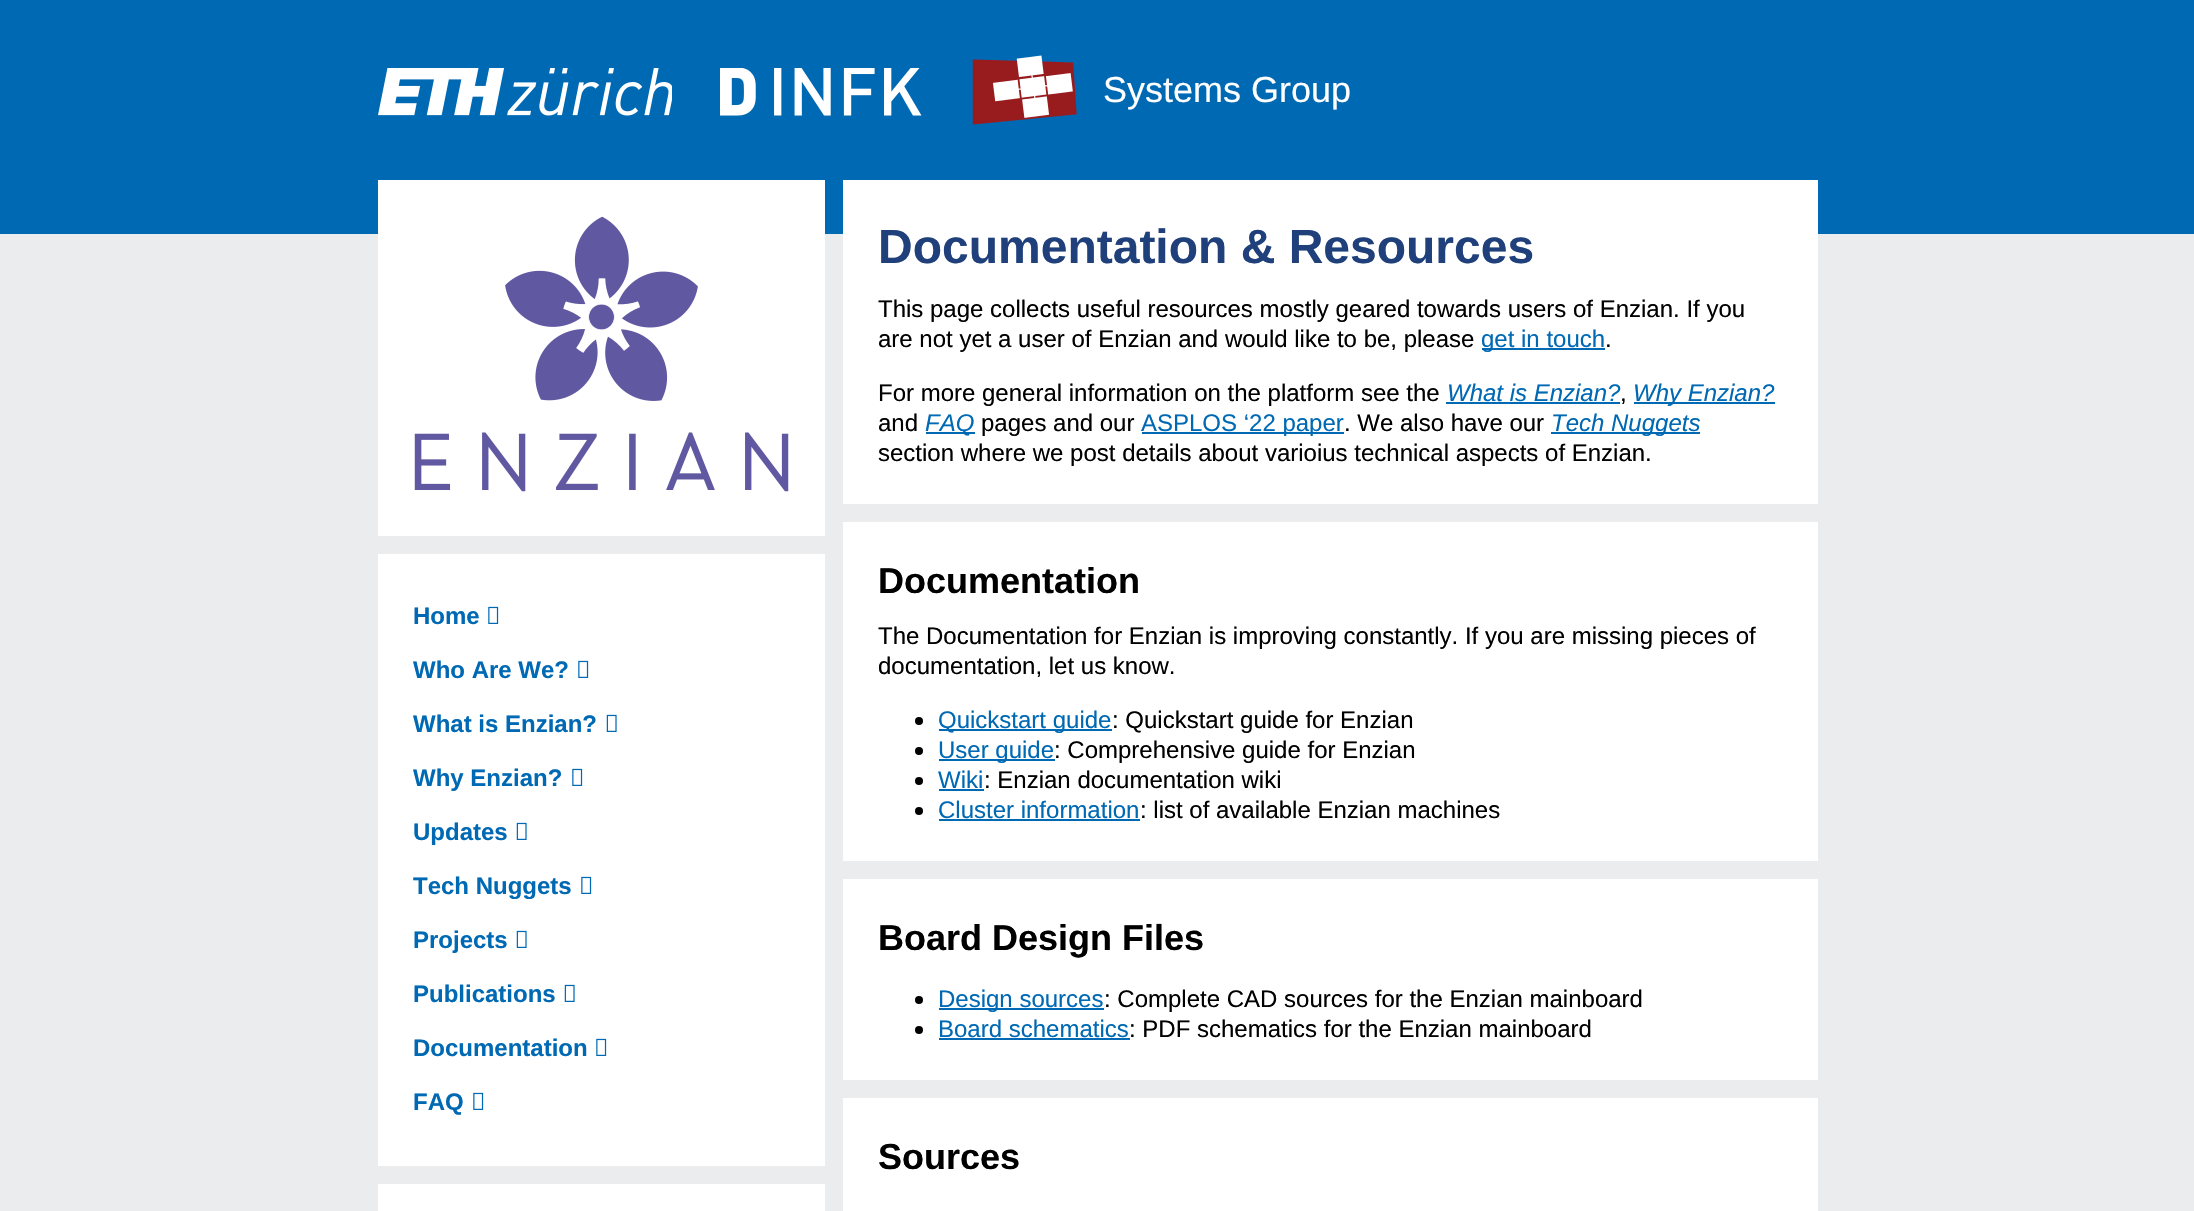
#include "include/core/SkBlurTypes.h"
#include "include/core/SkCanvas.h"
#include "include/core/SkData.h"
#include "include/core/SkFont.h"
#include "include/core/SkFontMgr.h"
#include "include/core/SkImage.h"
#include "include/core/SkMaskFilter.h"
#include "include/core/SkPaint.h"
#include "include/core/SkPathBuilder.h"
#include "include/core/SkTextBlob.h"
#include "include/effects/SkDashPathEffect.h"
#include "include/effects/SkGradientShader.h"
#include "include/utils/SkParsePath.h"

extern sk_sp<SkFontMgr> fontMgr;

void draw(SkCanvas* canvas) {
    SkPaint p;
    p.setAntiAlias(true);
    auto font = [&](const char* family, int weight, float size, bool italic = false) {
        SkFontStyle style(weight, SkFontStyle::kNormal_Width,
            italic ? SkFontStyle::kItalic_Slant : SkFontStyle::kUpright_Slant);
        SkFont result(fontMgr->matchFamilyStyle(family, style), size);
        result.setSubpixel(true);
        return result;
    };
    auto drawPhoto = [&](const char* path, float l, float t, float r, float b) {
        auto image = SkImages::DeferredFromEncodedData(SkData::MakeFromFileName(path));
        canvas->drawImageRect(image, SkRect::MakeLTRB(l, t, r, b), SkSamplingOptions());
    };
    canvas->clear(0xFFEAECEE);
    p.setColor(0xFF0069B4);
    canvas->drawRect(SkRect::MakeLTRB(0, 0, 2194, 234), p);
    drawPhoto("media/1.png", 378, 68, 672, 116);
    drawPhoto("media/2.png", 720, 68, 922, 116);
    drawPhoto("media/3.png", 972, 55, 1077, 125);
    auto font1 = font("Liberation Sans", 400, 36);
    p.setColor(0xFFFFFFFF);
    canvas->drawString("Systems Group", 1103, 102, font1, p);
    canvas->drawRect(SkRect::MakeLTRB(378, 180, 825, 536), p);
    drawPhoto("media/4.png", 414, 216, 789, 492);
    canvas->drawRect(SkRect::MakeLTRB(378, 554, 825, 1166), p);
    auto font2 = font("Liberation Sans", 700, 24);
    p.setColor(0xFF0069B4);
    canvas->drawString("Home", 413, 624, font2, p);
    drawPhoto("media/5.png", 488, 606, 499, 624);
    canvas->drawString("Who Are We?", 413, 678, font2, p);
    drawPhoto("media/5.png", 578, 660, 589, 678);
    canvas->drawString("What is Enzian?", 413, 732, font2, p);
    drawPhoto("media/6.png", 606, 714, 617, 732);
    canvas->drawString("Why Enzian?", 413, 786, font2, p);
    drawPhoto("media/5.png", 572, 768, 583, 786);
    canvas->drawString("Updates", 413, 840, font2, p);
    drawPhoto("media/6.png", 516, 822, 527, 840);
    canvas->drawString("Tech Nuggets", 413, 894, font2, p);
    drawPhoto("media/5.png", 581, 876, 592, 894);
    canvas->drawString("Projects", 413, 948, font2, p);
    drawPhoto("media/6.png", 516, 930, 527, 948);
    canvas->drawString("Publications", 413, 1002, font2, p);
    drawPhoto("media/6.png", 564, 984, 575, 1002);
    canvas->drawString("Documentation", 413, 1056, font2, p);
    drawPhoto("media/5.png", 596, 1038, 607, 1056);
    canvas->drawString("FAQ", 413, 1110, font2, p);
    drawPhoto("media/5.png", 473, 1092, 484, 1110);
    p.setColor(0xFFFFFFFF);
    canvas->drawRect(SkRect::MakeLTRB(378, 1184, 825, 1211), p);
    canvas->drawRect(SkRect::MakeLTRB(843, 180, 1818, 504), p);
    auto font3 = font("Liberation Sans", 700, 48);
    p.setColor(0xFF1F407A);
    canvas->drawString("Documentation & Resources", 878, 263, font3, p);
    auto font4 = font("Liberation Sans", 400, 24);
    p.setColor(0xFF000000);
    canvas->drawString("This page collects useful resources mostly geared towards users of Enzian. If you", 878, 317, font4, p);
    canvas->drawString("are not yet a user of Enzian and would like to be, please", 878, 347, font4, p);
    p.setColor(0xFF0069B4);
    canvas->drawRect(SkRect::MakeLTRB(1482, 348, 1605, 350), p);
    canvas->drawString("get in touch", 1481, 347, font4, p);
    p.setColor(0xFF000000);
    canvas->drawString(".", 1605, 347, font4, p);
    canvas->drawString("For more general information on the platform see the", 878, 401, font4, p);
    auto font5 = font("Liberation Sans", 400, 24, true);
    p.setColor(0xFF0069B4);
    canvas->drawString("What is Enzian?", 1447, 401, font5, p);
    canvas->drawRect(SkRect::MakeLTRB(1446, 402, 1620, 404), p);
    p.setColor(0xFF000000);
    canvas->drawString(",", 1620, 401, font4, p);
    p.setColor(0xFF0069B4);
    canvas->drawRect(SkRect::MakeLTRB(1634, 402, 1775, 404), p);
    canvas->drawString("Why Enzian?", 1633, 401, font5, p);
    p.setColor(0xFF000000);
    canvas->drawString("and", 878, 431, font4, p);
    p.setColor(0xFF0069B4);
    canvas->drawRect(SkRect::MakeLTRB(926, 432, 975, 434), p);
    canvas->drawString("FAQ", 925, 431, font5, p);
    p.setColor(0xFF000000);
    canvas->drawString("pages and our", 981, 431, font4, p);
    p.setColor(0xFF0069B4);
    canvas->drawRect(SkRect::MakeLTRB(1142, 432, 1344, 434), p);
    canvas->drawString("ASPLOS ‘22 paper", 1141, 431, font4, p);
    p.setColor(0xFF000000);
    canvas->drawString(". We also have our", 1344, 431, font4, p);
    p.setColor(0xFF0069B4);
    canvas->drawRect(SkRect::MakeLTRB(1551, 432, 1700, 434), p);
    canvas->drawString("Tech Nuggets", 1551, 431, font5, p);
    p.setColor(0xFF000000);
    canvas->drawString("section where we post details about varioius technical aspects of Enzian.", 878, 461, font4, p);
    p.setColor(0xFFFFFFFF);
    canvas->drawRect(SkRect::MakeLTRB(843, 522, 1818, 861), p);
    auto font6 = font("Liberation Sans", 700, 36);
    p.setColor(0xFF000000);
    canvas->drawString("Documentation", 878, 593, font6, p);
    canvas->drawString("The Documentation for Enzian is improving constantly. If you are missing pieces of", 878, 644, font4, p);
    canvas->drawString("documentation, let us know.", 878, 674, font4, p);
    canvas->drawCircle(919, 721, 4, p);
    p.setColor(0xFF0069B4);
    canvas->drawRect(SkRect::MakeLTRB(939, 729, 1112, 731), p);
    canvas->drawString("Quickstart guide", 938, 728, font4, p);
    p.setColor(0xFF000000);
    canvas->drawString(": Quickstart guide for Enzian", 1112, 728, font4, p);
    canvas->drawCircle(919, 751, 4, p);
    p.setColor(0xFF0069B4);
    canvas->drawRect(SkRect::MakeLTRB(939, 759, 1055, 761), p);
    canvas->drawString("User guide", 938, 758, font4, p);
    p.setColor(0xFF000000);
    canvas->drawString(": Comprehensive guide for Enzian", 1054, 758, font4, p);
    canvas->drawCircle(919, 781, 4, p);
    p.setColor(0xFF0069B4);
    canvas->drawString("Wiki", 938, 788, font4, p);
    canvas->drawRect(SkRect::MakeLTRB(939, 789, 984, 791), p);
    p.setColor(0xFF000000);
    canvas->drawString(": Enzian documentation wiki", 984, 788, font4, p);
    canvas->drawCircle(919, 811, 4, p);
    p.setColor(0xFF0069B4);
    canvas->drawString("Cluster information", 938, 818, font4, p);
    canvas->drawRect(SkRect::MakeLTRB(939, 819, 1140, 821), p);
    p.setColor(0xFF000000);
    canvas->drawString(": list of available Enzian machines", 1140, 818, font4, p);
    p.setColor(0xFFFFFFFF);
    canvas->drawRect(SkRect::MakeLTRB(843, 879, 1818, 1080), p);
    p.setColor(0xFF000000);
    canvas->drawString("Board Design Files", 878, 950, font6, p);
    canvas->drawCircle(919, 1000, 4, p);
    p.setColor(0xFF0069B4);
    canvas->drawRect(SkRect::MakeLTRB(939, 1008, 1104, 1010), p);
    canvas->drawString("Design sources", 938, 1007, font4, p);
    p.setColor(0xFF000000);
    canvas->drawString(": Complete CAD sources for the Enzian mainboard", 1104, 1007, font4, p);
    canvas->drawCircle(919, 1030, 4, p);
    p.setColor(0xFF0069B4);
    canvas->drawString("Board schematics", 938, 1037, font4, p);
    canvas->drawRect(SkRect::MakeLTRB(939, 1038, 1130, 1040), p);
    p.setColor(0xFF000000);
    canvas->drawString(": PDF schematics for the Enzian mainboard", 1129, 1037, font4, p);
    p.setColor(0xFFFFFFFF);
    canvas->drawRect(SkRect::MakeLTRB(843, 1098, 1818, 1211), p);
    p.setColor(0xFF000000);
    canvas->drawString("Sources", 878, 1169, font6, p);
}
